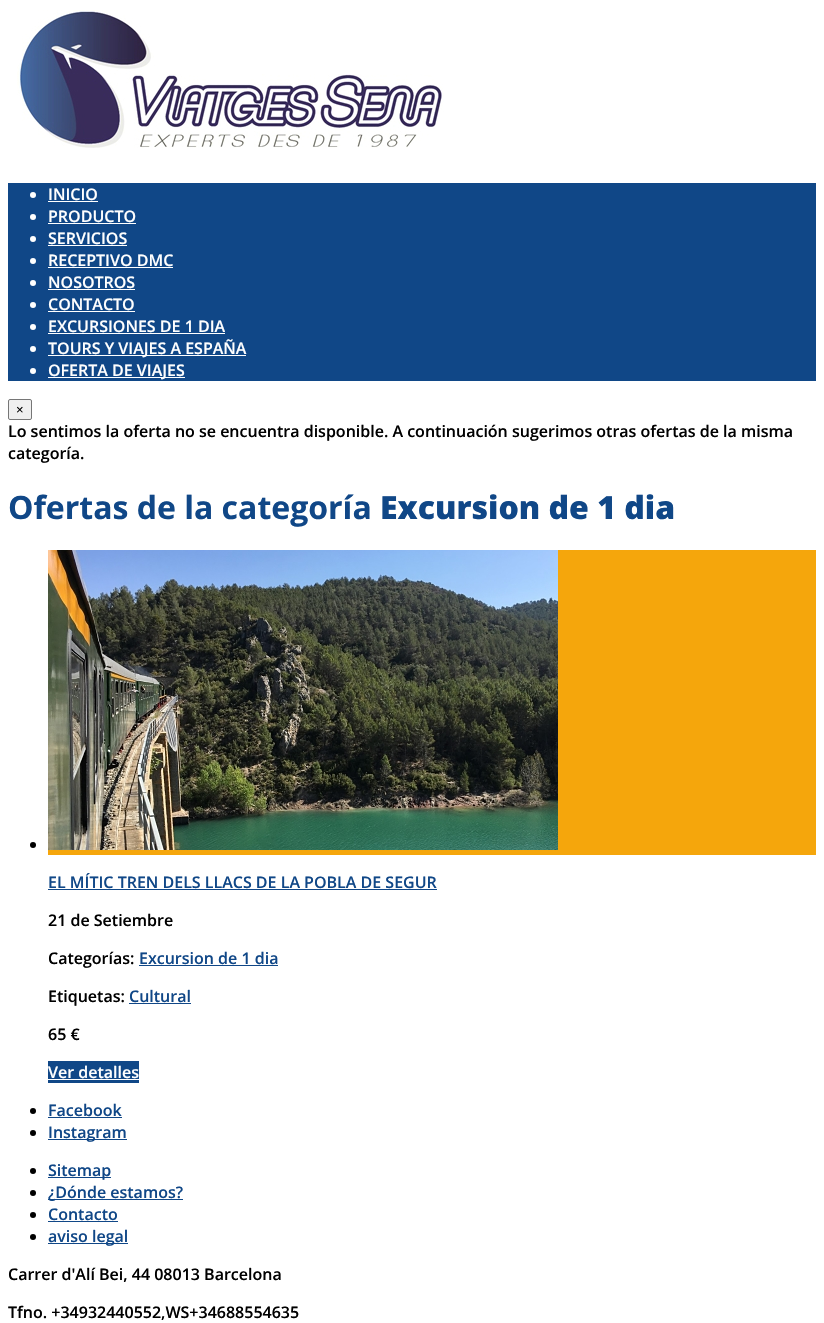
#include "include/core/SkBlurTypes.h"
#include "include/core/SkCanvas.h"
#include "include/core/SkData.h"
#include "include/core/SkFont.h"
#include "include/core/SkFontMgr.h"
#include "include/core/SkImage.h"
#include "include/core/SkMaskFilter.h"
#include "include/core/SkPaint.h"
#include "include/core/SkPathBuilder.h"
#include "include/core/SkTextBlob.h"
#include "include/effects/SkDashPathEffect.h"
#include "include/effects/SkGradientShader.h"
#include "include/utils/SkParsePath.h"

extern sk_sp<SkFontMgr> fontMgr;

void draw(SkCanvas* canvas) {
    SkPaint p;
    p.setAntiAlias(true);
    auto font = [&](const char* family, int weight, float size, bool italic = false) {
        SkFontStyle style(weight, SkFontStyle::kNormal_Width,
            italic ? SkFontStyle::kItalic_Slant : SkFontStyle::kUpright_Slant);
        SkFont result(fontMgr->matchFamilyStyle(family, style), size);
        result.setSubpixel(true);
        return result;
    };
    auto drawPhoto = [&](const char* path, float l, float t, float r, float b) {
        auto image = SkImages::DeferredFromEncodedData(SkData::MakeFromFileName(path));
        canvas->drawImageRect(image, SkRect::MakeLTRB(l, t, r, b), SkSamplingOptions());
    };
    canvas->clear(0xFFFFFFFF);
    drawPhoto("media/1.png", 17, 10, 444, 148);
    p.setColor(0xFF104787);
    canvas->drawRect(SkRect::MakeLTRB(8, 183, 816, 381), p);
    p.setColor(0xFFFFFFFF);
    canvas->drawCircle(33, 195, 3, p);
    auto font1 = font("Open Sans", 600, 16);
    canvas->drawString("INICIO", 48, 200, font1, p);
    canvas->drawRect(SkRect::MakeLTRB(48, 201, 98, 202), p);
    canvas->drawCircle(33, 217, 3, p);
    canvas->drawString("PRODUCTO", 48, 222, font1, p);
    canvas->drawRect(SkRect::MakeLTRB(48, 223, 136, 224), p);
    canvas->drawCircle(33, 239, 3, p);
    canvas->drawString("SERVICIOS", 48, 244, font1, p);
    canvas->drawRect(SkRect::MakeLTRB(48, 245, 127, 246), p);
    canvas->drawCircle(33, 261, 3, p);
    canvas->drawString("RECEPTIVO DMC", 48, 266, font1, p);
    canvas->drawRect(SkRect::MakeLTRB(48, 267, 173, 268), p);
    canvas->drawCircle(33, 283, 3, p);
    canvas->drawString("NOSOTROS", 48, 288, font1, p);
    canvas->drawRect(SkRect::MakeLTRB(48, 289, 135, 290), p);
    canvas->drawCircle(33, 305, 3, p);
    canvas->drawString("CONTACTO", 48, 310, font1, p);
    canvas->drawRect(SkRect::MakeLTRB(48, 311, 135, 312), p);
    canvas->drawCircle(33, 327, 3, p);
    canvas->drawString("EXCURSIONES DE 1 DIA", 48, 332, font1, p);
    canvas->drawRect(SkRect::MakeLTRB(48, 333, 225, 334), p);
    canvas->drawCircle(33, 349, 3, p);
    canvas->drawRect(SkRect::MakeLTRB(48, 355, 246, 356), p);
    canvas->drawString("TOURS Y VIAJES A ESPAÑA", 48, 354, font1, p);
    canvas->drawCircle(33, 371, 3, p);
    canvas->drawRect(SkRect::MakeLTRB(48, 377, 185, 378), p);
    canvas->drawString("OFERTA DE VIAJES", 48, 376, font1, p);
    p.setColor(0xFFEFEFEF);
    canvas->drawRoundRect(SkRect::MakeLTRB(8.5f, 399.5f, 31.5f, 419.5f), 1.5f, 1.5f, p);
    p.setStyle(SkPaint::kStroke_Style);
    p.setStrokeWidth(1);
    p.setColor(0xFF767676);
    canvas->drawRoundRect(SkRect::MakeLTRB(8.5f, 399.5f, 31.5f, 419.5f), 1.5f, 1.5f, p);
    auto font2 = font("Liberation Sans", 400, 13);
    p.setStyle(SkPaint::kFill_Style);
    p.setColor(0xFF000000);
    canvas->drawString("×", 16, 414, font2, p);
    canvas->drawString("Lo sentimos la oferta no se encuentra disponible. A continuación sugerimos otras ofertas de la misma", 8, 437, font1, p);
    canvas->drawString("categoría.", 8, 459, font1, p);
    auto font3 = font("Open Sans", 700, 32);
    p.setColor(0xFF104787);
    canvas->drawString("Ofertas de la categoría", 8, 519, font3, p);
    auto font4 = font("Open Sans", 800, 32);
    canvas->drawString("Excursion de 1 dia", 380, 519, font4, p);
    p.setColor(0xFF000000);
    canvas->drawCircle(33, 845, 3, p);
    p.setColor(0xFFF5A60C);
    canvas->drawRect(SkRect::MakeLTRB(48, 550, 816, 855), p);
    drawPhoto("media/2.png", 48, 550, 558, 850);
    p.setColor(0xFF104787);
    canvas->drawString("EL MÍTIC TREN DELS LLACS DE LA POBLA DE SEGUR", 48, 888, font1, p);
    canvas->drawRect(SkRect::MakeLTRB(48, 889, 437, 890), p);
    p.setColor(0xFF000000);
    canvas->drawString("21 de Setiembre", 48, 926, font1, p);
    canvas->drawString("Categorías:", 48, 964, font1, p);
    p.setColor(0xFF104787);
    canvas->drawString("Excursion de 1 dia", 139, 964, font1, p);
    canvas->drawRect(SkRect::MakeLTRB(139, 965, 278, 966), p);
    p.setColor(0xFF000000);
    canvas->drawString("Etiquetas:", 48, 1002, font1, p);
    p.setColor(0xFF104787);
    canvas->drawString("Cultural", 129, 1002, font1, p);
    canvas->drawRect(SkRect::MakeLTRB(129, 1003, 191, 1004), p);
    p.setColor(0xFF000000);
    canvas->drawString("65 €", 48, 1040, font1, p);
    p.setColor(0xFF104787);
    canvas->drawRect(SkRect::MakeLTRB(48, 1061, 139, 1083), p);
    p.setColor(0xFFFFFFFF);
    canvas->drawString("Ver detalles", 48, 1078, font1, p);
    canvas->drawRect(SkRect::MakeLTRB(48, 1079, 139, 1080), p);
    p.setColor(0xFF000000);
    canvas->drawCircle(33, 1111, 3, p);
    p.setColor(0xFF104787);
    canvas->drawString("Facebook", 48, 1116, font1, p);
    canvas->drawRect(SkRect::MakeLTRB(48, 1117, 122, 1118), p);
    p.setColor(0xFF000000);
    canvas->drawCircle(33, 1133, 3, p);
    p.setColor(0xFF104787);
    canvas->drawRect(SkRect::MakeLTRB(48, 1139, 127, 1140), p);
    canvas->drawString("Instagram", 48, 1138, font1, p);
    p.setColor(0xFF000000);
    canvas->drawCircle(33, 1171, 3, p);
    p.setColor(0xFF104787);
    canvas->drawRect(SkRect::MakeLTRB(48, 1177, 111, 1178), p);
    canvas->drawString("Sitemap", 48, 1176, font1, p);
    p.setColor(0xFF000000);
    canvas->drawCircle(33, 1193, 3, p);
    p.setColor(0xFF104787);
    canvas->drawRect(SkRect::MakeLTRB(48, 1199, 183, 1200), p);
    canvas->drawString("¿Dónde estamos?", 48, 1198, font1, p);
    p.setColor(0xFF000000);
    canvas->drawCircle(33, 1215, 3, p);
    p.setColor(0xFF104787);
    canvas->drawString("Contacto", 48, 1220, font1, p);
    canvas->drawRect(SkRect::MakeLTRB(48, 1221, 118, 1222), p);
    p.setColor(0xFF000000);
    canvas->drawCircle(33, 1237, 3, p);
    p.setColor(0xFF104787);
    canvas->drawRect(SkRect::MakeLTRB(48, 1243, 128, 1244), p);
    canvas->drawString("aviso legal", 48, 1242, font1, p);
    p.setColor(0xFF000000);
    canvas->drawString("Carrer d'Alí Bei, 44 08013 Barcelona", 8, 1280, font1, p);
    canvas->drawString("Tfno. +34932440552,WS+34688554635", 8, 1318, font1, p);
}
